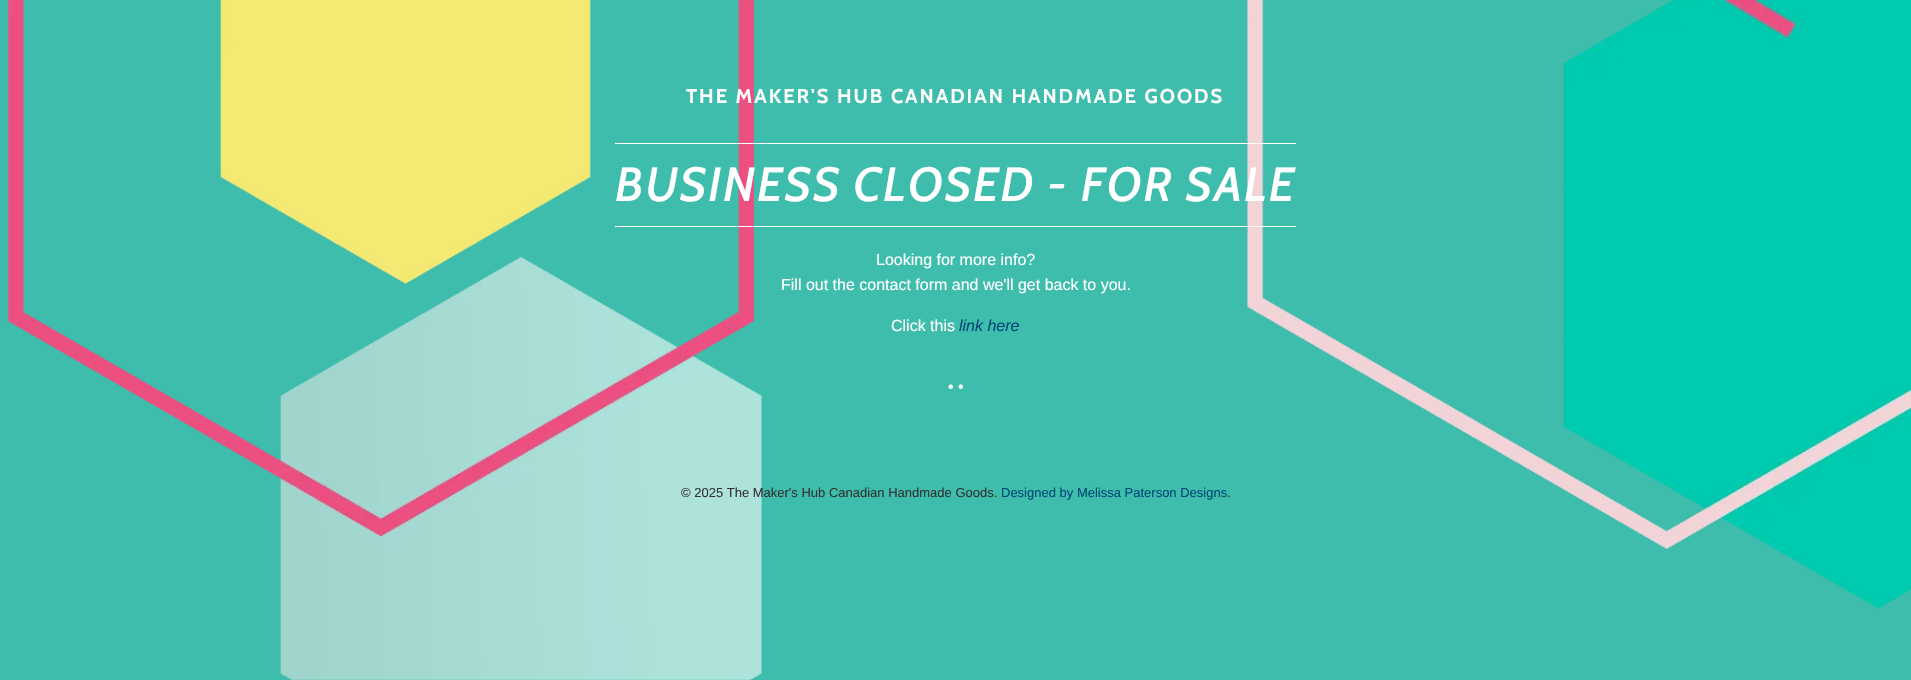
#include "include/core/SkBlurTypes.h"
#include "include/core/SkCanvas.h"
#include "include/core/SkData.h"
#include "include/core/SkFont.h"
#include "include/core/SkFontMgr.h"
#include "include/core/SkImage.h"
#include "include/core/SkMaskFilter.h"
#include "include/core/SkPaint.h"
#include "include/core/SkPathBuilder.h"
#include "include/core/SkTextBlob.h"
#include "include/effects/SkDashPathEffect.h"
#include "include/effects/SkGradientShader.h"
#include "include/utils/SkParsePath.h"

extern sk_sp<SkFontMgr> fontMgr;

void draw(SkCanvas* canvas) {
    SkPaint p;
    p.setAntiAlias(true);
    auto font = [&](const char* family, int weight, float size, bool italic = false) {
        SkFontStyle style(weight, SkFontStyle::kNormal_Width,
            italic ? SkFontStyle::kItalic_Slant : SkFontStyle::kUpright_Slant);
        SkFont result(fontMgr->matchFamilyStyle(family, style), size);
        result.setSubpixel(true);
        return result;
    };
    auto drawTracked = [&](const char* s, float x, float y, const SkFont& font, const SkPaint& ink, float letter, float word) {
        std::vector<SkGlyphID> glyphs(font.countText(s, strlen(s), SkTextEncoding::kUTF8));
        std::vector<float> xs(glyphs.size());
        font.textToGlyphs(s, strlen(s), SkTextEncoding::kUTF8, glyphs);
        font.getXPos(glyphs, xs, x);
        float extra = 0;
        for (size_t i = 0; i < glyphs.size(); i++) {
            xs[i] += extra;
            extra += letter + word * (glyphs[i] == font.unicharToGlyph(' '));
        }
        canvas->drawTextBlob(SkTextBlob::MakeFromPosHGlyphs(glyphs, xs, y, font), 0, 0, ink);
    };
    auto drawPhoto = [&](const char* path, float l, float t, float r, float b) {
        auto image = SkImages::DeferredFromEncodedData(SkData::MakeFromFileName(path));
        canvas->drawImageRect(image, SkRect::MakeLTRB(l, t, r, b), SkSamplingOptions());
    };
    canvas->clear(0xFF3EBDAC);
    drawPhoto("media/1.png", 7, 0, 1911, 680);
    auto font1 = font("Cabin", 700, 20);
    p.setColor(0xFFFFFFFF);
    drawTracked("THE MAKER'S HUB CANADIAN HANDMADE GOODS", 686, 103, font1, p, 2, 0);
    canvas->drawRect(SkRect::MakeLTRB(615, 143, 1296, 144), p);
    canvas->drawRect(SkRect::MakeLTRB(615, 226, 1296, 227), p);
    auto font2 = font("Cabin", 500, 48, true);
    drawTracked("BUSINESS CLOSED - FOR SALE", 615, 201, font2, p, 2, 0);
    auto font3 = font("Liberation Sans", 400, 16);
    {
        const struct { const char* s; float x, y; } items[] = {
            {"Looking for more info?", 876, 265},
            {"Fill out the contact form and we'll get back to you.", 781, 290},
            {"Click this", 891, 331},
        };
        for (auto [s, x, y] : items) {
            canvas->drawString(s, x, y, font3, p);
        }
    }
    auto font4 = font("Liberation Sans", 400, 16, true);
    p.setColor(0xFF004976);
    canvas->drawString("link here", 959, 331, font4, p);
    p.setColor(0xFFFFFFFF);
    canvas->drawString("• •", 948, 392, font3, p);
    auto font5 = font("Liberation Sans", 400, 13);
    p.setColor(0xFF333333);
    canvas->drawString("© 2025 The Maker's Hub Canadian Handmade Goods.", 681, 497, font5, p);
    p.setColor(0xFF004976);
    canvas->drawString("Designed by Melissa Paterson Designs", 1001, 497, font5, p);
    p.setColor(0xFF333333);
    canvas->drawString(".", 1227, 497, font5, p);
}
